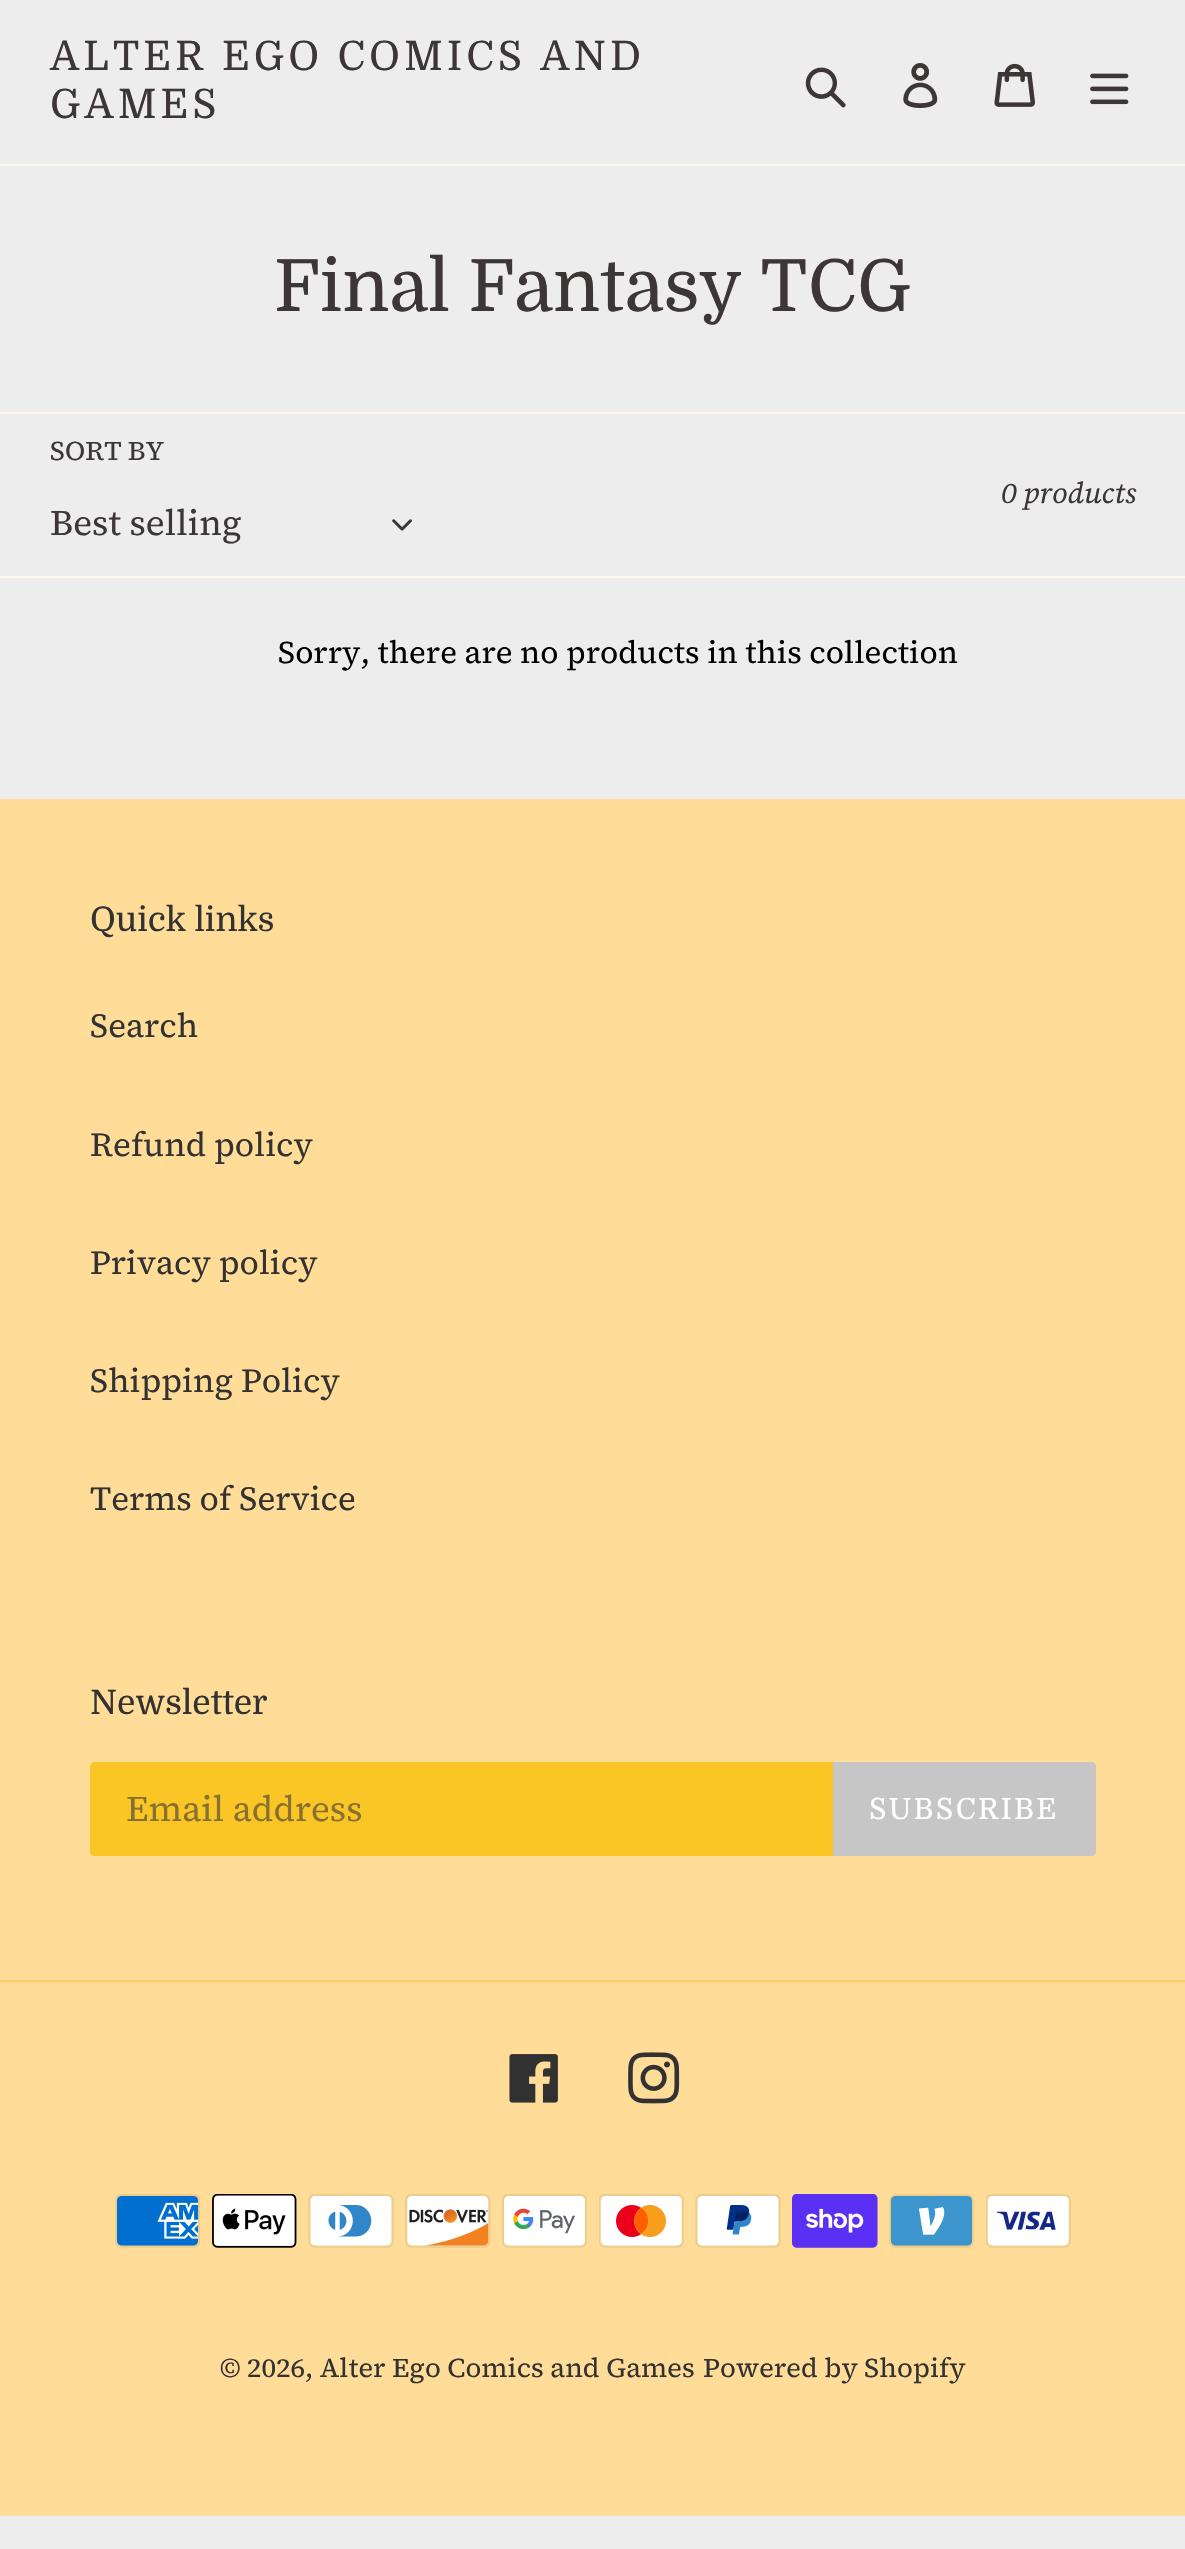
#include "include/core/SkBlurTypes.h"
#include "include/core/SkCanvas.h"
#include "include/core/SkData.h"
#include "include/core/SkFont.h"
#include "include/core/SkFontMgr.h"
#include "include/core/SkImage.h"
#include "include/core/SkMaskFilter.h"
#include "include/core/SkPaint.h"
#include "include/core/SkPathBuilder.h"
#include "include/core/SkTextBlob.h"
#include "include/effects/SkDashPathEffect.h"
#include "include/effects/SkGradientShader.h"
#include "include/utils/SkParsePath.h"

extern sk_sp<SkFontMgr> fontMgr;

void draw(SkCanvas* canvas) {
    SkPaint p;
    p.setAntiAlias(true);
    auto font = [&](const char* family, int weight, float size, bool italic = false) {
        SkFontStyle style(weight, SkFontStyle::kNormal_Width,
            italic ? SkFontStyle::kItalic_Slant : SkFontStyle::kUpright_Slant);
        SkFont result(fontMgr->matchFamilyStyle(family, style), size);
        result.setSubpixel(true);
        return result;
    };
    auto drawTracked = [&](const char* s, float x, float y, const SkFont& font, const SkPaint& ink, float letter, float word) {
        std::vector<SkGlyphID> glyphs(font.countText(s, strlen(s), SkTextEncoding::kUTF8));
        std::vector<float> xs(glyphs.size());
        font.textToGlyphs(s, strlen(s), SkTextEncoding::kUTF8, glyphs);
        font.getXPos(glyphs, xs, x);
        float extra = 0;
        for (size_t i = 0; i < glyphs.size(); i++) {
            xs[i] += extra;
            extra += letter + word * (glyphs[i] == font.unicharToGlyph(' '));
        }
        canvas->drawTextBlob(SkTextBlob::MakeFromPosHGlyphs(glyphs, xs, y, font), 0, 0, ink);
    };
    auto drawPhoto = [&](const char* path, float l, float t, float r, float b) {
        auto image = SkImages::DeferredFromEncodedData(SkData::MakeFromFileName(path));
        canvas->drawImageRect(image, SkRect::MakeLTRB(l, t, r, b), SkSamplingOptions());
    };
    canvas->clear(0xFFEDEDED);
    p.setColor(0xFFFFF8EE);
    canvas->drawRect(SkRect::MakeLTRB(0, 164, 1185, 166), p);
    auto font1 = font("Domine", 400, 40.5f);
    p.setColor(0xFF3C3636);
    drawTracked("ALTER EGO COMICS AND", 50, 70, font1, p, 4, 0);
    drawTracked("GAMES", 50, 118, font1, p, 4, 0);
    drawPhoto("media/1.png", 805, 67, 846, 108);
    drawPhoto("media/2.png", 903, 63, 938, 108);
    drawPhoto("media/3.png", 994, 63, 1035, 107);
    drawPhoto("media/4.png", 1090, 73, 1129, 105);
    auto font2 = font("Domine", 400, 72);
    canvas->drawString("Final Fantasy TCG", 274, 311, font2, p);
    p.setColor(0xFFFFF8EE);
    canvas->drawRect(SkRect::MakeLTRB(0, 412, 1185, 414), p);
    canvas->drawRect(SkRect::MakeLTRB(0, 576, 1185, 578), p);
    auto font3 = font("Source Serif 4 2", 400, 27);
    p.setColor(0xFF3C3636);
    canvas->drawString("SORT BY", 50, 460, font3, p);
    auto font4 = font("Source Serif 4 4", 400, 36);
    canvas->drawString("Best selling", 50, 535, font4, p);
    drawPhoto("media/5.png", 392, 519, 412, 531);
    auto font5 = font("Source Serif 4", 400, 29.25f, true);
    canvas->drawString("0 products", 1001, 503, font5, p);
    auto font6 = font("Source Serif 4", 400, 31.5f);
    p.setColor(0xFF000000);
    canvas->drawString("Sorry, there are no products in this collection", 278, 663, font6, p);
    p.setColor(0xFFFFDC97);
    canvas->drawRect(SkRect::MakeLTRB(0, 799, 1185, 2516), p);
    auto font7 = font("Domine", 400, 33.75f);
    p.setColor(0xFF333232);
    canvas->drawString("Quick links", 90, 931, font7, p);
    auto font8 = font("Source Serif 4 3", 400, 33.75f);
    {
        const struct { const char* s; float x, y; } items[] = {
            {"Search", 90, 1037},
            {"Refund policy", 90, 1156},
            {"Privacy policy", 90, 1274},
            {"Shipping Policy", 90, 1392},
            {"Terms of Service", 90, 1510},
        };
        for (auto [s, x, y] : items) {
            canvas->drawString(s, x, y, font8, p);
        }
    }
    canvas->drawString("Newsletter", 90, 1714, font7, p);
    p.setColor(0xFFF9C626);
    canvas->drawPath(SkPathBuilder().moveTo(95, 1762).lineTo(833, 1762).lineTo(833, 1856).lineTo(95, 1856).cubicTo(92, 1856, 90, 1854, 90, 1851).lineTo(90, 1767).cubicTo(90, 1764, 92, 1762, 95, 1762).close().detach(), p);
    p.setColor(0xFF887030);
    canvas->drawString("Email address", 126, 1821, font4, p);
    p.setColor(0xFFC6C6C6);
    canvas->drawPath(SkPathBuilder().moveTo(833, 1762).lineTo(1091, 1762).cubicTo(1094, 1762, 1096, 1764, 1096, 1767).lineTo(1096, 1851).cubicTo(1096, 1854, 1094, 1856, 1091, 1856).lineTo(833, 1856).close().detach(), p);
    auto font9 = font("Domine", 400, 29.25f);
    p.setColor(0xFFFFFFFF);
    drawTracked("SUBSCRIBE", 869, 1819, font9, p, 2.25f, 0);
    p.setColor(0xFFFFCB64);
    canvas->drawRect(SkRect::MakeLTRB(0, 1980, 1185, 1982), p);
    drawPhoto("media/6.png", 509, 2054, 558, 2103);
    drawPhoto("media/7.png", 628, 2052, 680, 2104);
    drawPhoto("media/8.png", 115, 2194, 200, 2248);
    drawPhoto("media/9.png", 212, 2194, 297, 2248);
    drawPhoto("media/10.png", 308, 2194, 394, 2248);
    drawPhoto("media/11.png", 405, 2194, 491, 2248);
    drawPhoto("media/12.png", 502, 2194, 587, 2248);
    drawPhoto("media/13.png", 599, 2194, 684, 2248);
    drawPhoto("media/14.png", 695, 2194, 781, 2248);
    drawPhoto("media/15.png", 792, 2194, 878, 2248);
    drawPhoto("media/16.png", 889, 2194, 974, 2248);
    drawPhoto("media/17.png", 986, 2194, 1071, 2248);
    p.setColor(0xFF333232);
    canvas->drawString("© 2026, Alter Ego Comics and Games", 220, 2377, font3, p);
    canvas->drawString("Powered by Shopify", 703, 2377, font3, p);
}
